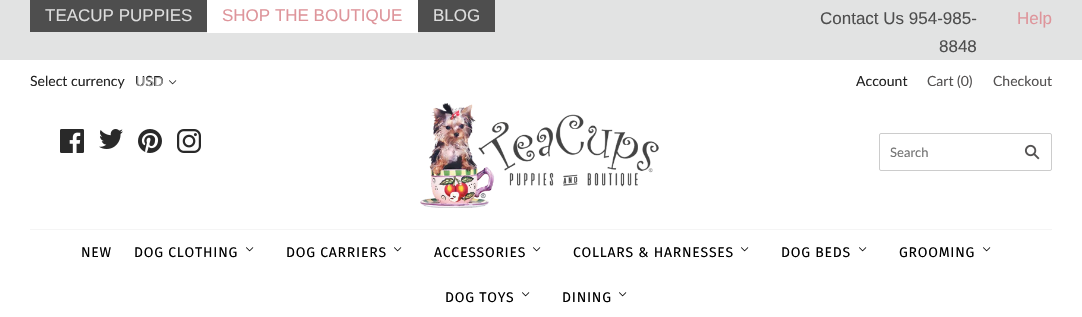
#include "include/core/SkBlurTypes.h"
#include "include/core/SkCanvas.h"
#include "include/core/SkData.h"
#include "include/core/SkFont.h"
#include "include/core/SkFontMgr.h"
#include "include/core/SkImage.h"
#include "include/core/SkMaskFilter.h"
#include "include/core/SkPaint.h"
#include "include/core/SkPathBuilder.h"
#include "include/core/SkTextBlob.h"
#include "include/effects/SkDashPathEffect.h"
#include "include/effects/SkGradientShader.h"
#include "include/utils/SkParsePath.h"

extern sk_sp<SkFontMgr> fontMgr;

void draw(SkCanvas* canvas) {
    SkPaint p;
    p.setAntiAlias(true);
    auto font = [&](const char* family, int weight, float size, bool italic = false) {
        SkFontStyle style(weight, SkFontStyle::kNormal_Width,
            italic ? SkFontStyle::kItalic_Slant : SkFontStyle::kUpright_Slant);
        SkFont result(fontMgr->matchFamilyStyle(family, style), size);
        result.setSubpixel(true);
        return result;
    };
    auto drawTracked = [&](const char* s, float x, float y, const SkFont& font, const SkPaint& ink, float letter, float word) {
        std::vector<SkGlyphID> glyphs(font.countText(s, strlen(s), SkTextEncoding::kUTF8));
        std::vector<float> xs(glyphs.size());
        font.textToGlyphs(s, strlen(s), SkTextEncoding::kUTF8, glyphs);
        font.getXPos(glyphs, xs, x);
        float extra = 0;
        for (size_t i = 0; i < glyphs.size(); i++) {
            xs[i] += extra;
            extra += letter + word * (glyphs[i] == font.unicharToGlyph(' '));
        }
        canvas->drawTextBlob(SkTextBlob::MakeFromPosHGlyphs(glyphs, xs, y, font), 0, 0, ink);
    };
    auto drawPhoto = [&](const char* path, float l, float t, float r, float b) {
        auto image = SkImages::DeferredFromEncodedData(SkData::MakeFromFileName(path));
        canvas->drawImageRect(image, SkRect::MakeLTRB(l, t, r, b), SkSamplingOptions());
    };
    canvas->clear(0xFFFFFFFF);
    p.setColor(0xFFE2E3E3);
    canvas->drawRect(SkRect::MakeLTRB(0, 0, 1082, 60), p);
    p.setColor(0xFF4E4E4E);
    canvas->drawRect(SkRect::MakeLTRB(30, 0, 207, 32), p);
    auto font1 = font("Liberation Sans", 400, 17);
    p.setColor(0xFFDDDDDD);
    canvas->drawString("TEACUP PUPPIES", 45, 21, font1, p);
    p.setColor(0xFFFFFFFF);
    canvas->drawRect(SkRect::MakeLTRB(207, 0, 418, 33), p);
    p.setColor(0xFFDE959B);
    canvas->drawString("SHOP THE BOUTIQUE", 222, 21, font1, p);
    p.setColor(0xFF4E4E4E);
    canvas->drawRect(SkRect::MakeLTRB(418, 0, 495, 32), p);
    p.setColor(0xFFDDDDDD);
    canvas->drawString("BLOG", 433, 21, font1, p);
    p.setColor(0xFF4E4E4E);
    canvas->drawString("Contact Us 954-985-", 820, 24, font1, p);
    canvas->drawString("8848", 939, 52, font1, p);
    p.setColor(0xFFDE959B);
    canvas->drawString("Help", 1017, 24, font1, p);
    auto font2 = font("Lato", 400, 14);
    p.setColor(0xFF242424);
    canvas->drawString("Select currency", 30, 86, font2, p);
    canvas->drawString("USD", 135, 86, font2, p);
    drawPhoto("media/1.png", 169, 80, 177, 85);
    auto font3 = font("Liberation Sans", 400, 13);
    p.setColor(0xFF9F9F9F);
    canvas->drawString("USD", 136, 86, font3, p);
    p.setColor(0xFF242424);
    canvas->drawString("Account", 856, 86, font2, p);
    p.setColor(0xFF545252);
    canvas->drawString("Cart (0)", 927, 86, font2, p);
    canvas->drawString("Checkout", 993, 86, font2, p);
    drawPhoto("media/2.png", 60, 129, 84, 153);
    drawPhoto("media/3.png", 99, 129, 123, 149);
    drawPhoto("media/4.png", 138, 129, 162, 153);
    drawPhoto("media/5.png", 177, 129, 201, 153);
    drawPhoto("media/6.png", 420, 103, 659, 208);
    p.setStyle(SkPaint::kStroke_Style);
    p.setStrokeWidth(1);
    p.setColor(0xFFCCCCCC);
    canvas->drawRoundRect(SkRect::MakeLTRB(879.5f, 133.5f, 1051.5f, 170.5f), 1.5f, 1.5f, p);
    auto font4 = font("Lato", 400, 13);
    p.setStyle(SkPaint::kFill_Style);
    p.setColor(0xFF757575);
    canvas->drawString("Search", 890, 157, font4, p);
    drawPhoto("media/7.png", 1024, 144, 1040, 160);
    p.setColor(0xFFF5F5F5);
    canvas->drawRect(SkRect::MakeLTRB(30, 229, 1052, 230), p);
    auto font5 = font("Fira Sans", 400, 14);
    p.setColor(0xFF000000);
    drawTracked("NEW", 81, 257, font5, p, 0.75f, 0);
    drawTracked("DOG CLOTHING", 134, 257, font5, p, 0.75f, 0);
    drawPhoto("media/8.png", 246, 247, 254, 252);
    drawTracked("DOG CARRIERS", 286, 257, font5, p, 0.75f, 0);
    drawPhoto("media/8.png", 394, 247, 402, 252);
    drawTracked("ACCESSORIES", 434, 257, font5, p, 0.75f, 0);
    drawPhoto("media/8.png", 533, 247, 541, 252);
    drawTracked("COLLARS & HARNESSES", 573, 257, font5, p, 0.75f, 0);
    drawPhoto("media/8.png", 741, 247, 749, 252);
    drawTracked("DOG BEDS", 781, 257, font5, p, 0.75f, 0);
    drawPhoto("media/8.png", 859, 247, 867, 252);
    drawTracked("GROOMING", 899, 257, font5, p, 0.75f, 0);
    drawPhoto("media/8.png", 983, 247, 991, 252);
    drawTracked("DOG TOYS", 445, 302, font5, p, 0.75f, 0);
    drawPhoto("media/8.png", 522, 292, 530, 297);
    drawTracked("DINING", 562, 302, font5, p, 0.75f, 0);
    drawPhoto("media/8.png", 619, 292, 627, 297);
}
